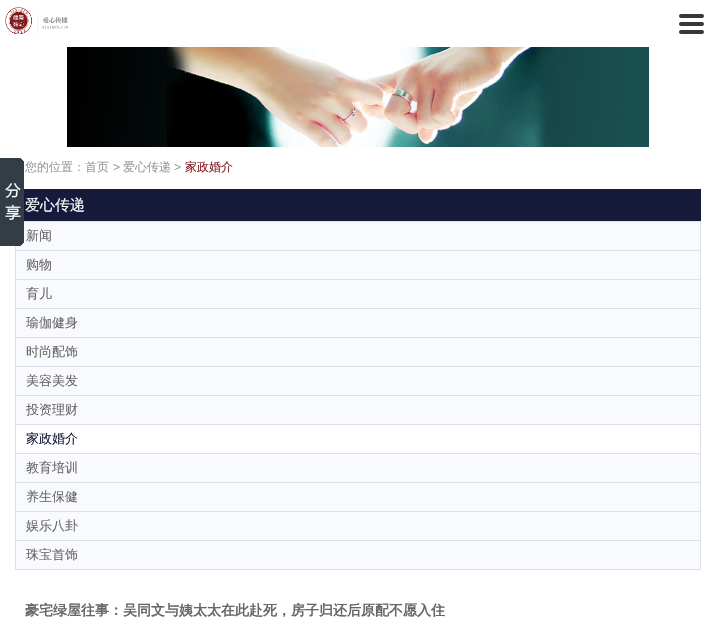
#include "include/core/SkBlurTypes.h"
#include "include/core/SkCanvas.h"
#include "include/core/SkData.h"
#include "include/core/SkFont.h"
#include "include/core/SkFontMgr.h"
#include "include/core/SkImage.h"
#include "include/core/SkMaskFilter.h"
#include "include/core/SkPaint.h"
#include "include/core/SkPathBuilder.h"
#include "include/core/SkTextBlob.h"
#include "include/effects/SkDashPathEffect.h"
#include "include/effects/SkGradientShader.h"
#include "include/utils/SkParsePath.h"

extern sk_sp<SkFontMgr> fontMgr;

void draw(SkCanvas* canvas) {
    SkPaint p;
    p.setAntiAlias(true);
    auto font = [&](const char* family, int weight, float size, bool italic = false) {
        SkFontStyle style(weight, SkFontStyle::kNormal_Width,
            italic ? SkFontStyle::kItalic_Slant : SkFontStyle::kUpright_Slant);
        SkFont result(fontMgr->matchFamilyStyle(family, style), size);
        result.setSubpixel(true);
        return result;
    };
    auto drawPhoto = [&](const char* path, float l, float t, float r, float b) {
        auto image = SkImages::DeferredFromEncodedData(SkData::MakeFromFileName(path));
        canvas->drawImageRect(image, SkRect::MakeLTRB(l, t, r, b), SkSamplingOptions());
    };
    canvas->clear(0xFFFFFFFF);
    drawPhoto("media/1.png", 5, 7, 68, 35);
    p.setColor(0xFF383838);
    canvas->drawRoundRect(SkRect::MakeLTRB(679, 14, 704, 18), 2, 2, p);
    canvas->drawRoundRect(SkRect::MakeLTRB(679, 22, 704, 26), 2, 2, p);
    canvas->drawRoundRect(SkRect::MakeLTRB(679, 30, 704, 34), 2, 2, p);
    drawPhoto("media/2.png", 67, 47, 649, 147);
    p.setColor(0xFFF9FAFE);
    canvas->drawRect(SkRect::MakeLTRB(15.5f, 221.5f, 700.5f, 569.5f), p);
    p.setStyle(SkPaint::kStroke_Style);
    p.setStrokeWidth(1);
    p.setColor(0xFFDDDFEB);
    canvas->drawRect(SkRect::MakeLTRB(15.5f, 221.5f, 700.5f, 569.5f), p);
    drawPhoto("media/3.png", 0, 158, 24, 246);
    auto font1 = font("WenQuanYi Zen Hei", 500, 12);
    p.setStyle(SkPaint::kFill_Style);
    p.setColor(0xFF999999);
    canvas->drawString("您的位置：首页", 25, 171, font1, p);
    auto font2 = font("Liberation Sans", 400, 12);
    canvas->drawString(">", 113, 171, font2, p);
    canvas->drawString("爱心传递", 123, 171, font1, p);
    canvas->drawString(">", 174, 171, font2, p);
    p.setColor(0xFF811B20);
    canvas->drawString("家政婚介", 185, 171, font1, p);
    p.setColor(0xFF161B3B);
    canvas->drawRect(SkRect::MakeLTRB(24, 189, 701, 221), p);
    auto font3 = font("WenQuanYi Zen Hei", 500, 15);
    p.setColor(0xFFFFFFFF);
    canvas->drawString("爱心传递", 25, 210, font3, p);
    p.setColor(0xFFDDDFEB);
    canvas->drawRect(SkRect::MakeLTRB(16, 250, 700, 251), p);
    auto font4 = font("WenQuanYi Zen Hei", 500, 13);
    p.setColor(0xFF666666);
    canvas->drawString("新闻", 26, 240, font4, p);
    p.setColor(0xFFDDDFEB);
    canvas->drawRect(SkRect::MakeLTRB(16, 279, 700, 280), p);
    p.setColor(0xFF666666);
    canvas->drawString("购物", 26, 269, font4, p);
    p.setColor(0xFFDDDFEB);
    canvas->drawRect(SkRect::MakeLTRB(16, 308, 700, 309), p);
    p.setColor(0xFF666666);
    canvas->drawString("育儿", 26, 298, font4, p);
    p.setColor(0xFFDDDFEB);
    canvas->drawRect(SkRect::MakeLTRB(16, 337, 700, 338), p);
    p.setColor(0xFF666666);
    canvas->drawString("瑜伽健身", 26, 327, font4, p);
    p.setColor(0xFFDDDFEB);
    canvas->drawRect(SkRect::MakeLTRB(16, 366, 700, 367), p);
    p.setColor(0xFF666666);
    canvas->drawString("时尚配饰", 26, 356, font4, p);
    p.setColor(0xFFDDDFEB);
    canvas->drawRect(SkRect::MakeLTRB(16, 395, 700, 396), p);
    p.setColor(0xFF666666);
    canvas->drawString("美容美发", 26, 385, font4, p);
    p.setColor(0xFFDDDFEB);
    canvas->drawRect(SkRect::MakeLTRB(16, 424, 700, 425), p);
    p.setColor(0xFF666666);
    canvas->drawString("投资理财", 26, 414, font4, p);
    p.setColor(0xFFFFFFFF);
    canvas->drawRect(SkRect::MakeLTRB(16, 425, 700, 453), p);
    p.setColor(0xFFDDDFEB);
    canvas->drawRect(SkRect::MakeLTRB(16, 453, 700, 454), p);
    p.setColor(0xFF151B3A);
    canvas->drawString("家政婚介", 26, 443, font4, p);
    p.setColor(0xFFDDDFEB);
    canvas->drawRect(SkRect::MakeLTRB(16, 482, 700, 483), p);
    p.setColor(0xFF666666);
    canvas->drawString("教育培训", 26, 472, font4, p);
    p.setColor(0xFFDDDFEB);
    canvas->drawRect(SkRect::MakeLTRB(16, 511, 700, 512), p);
    p.setColor(0xFF666666);
    canvas->drawString("养生保健", 26, 501, font4, p);
    p.setColor(0xFFDDDFEB);
    canvas->drawRect(SkRect::MakeLTRB(16, 540, 700, 541), p);
    p.setColor(0xFF666666);
    canvas->drawString("娱乐八卦", 26, 530, font4, p);
    canvas->drawString("珠宝首饰", 26, 559, font4, p);
    auto font5 = font("WenQuanYi Zen Hei", 700, 14);
    canvas->drawString("豪宅绿屋往事：吴同文与姨太太在此赴死，房子归还后原配不愿入住", 25, 615, font5, p);
}
